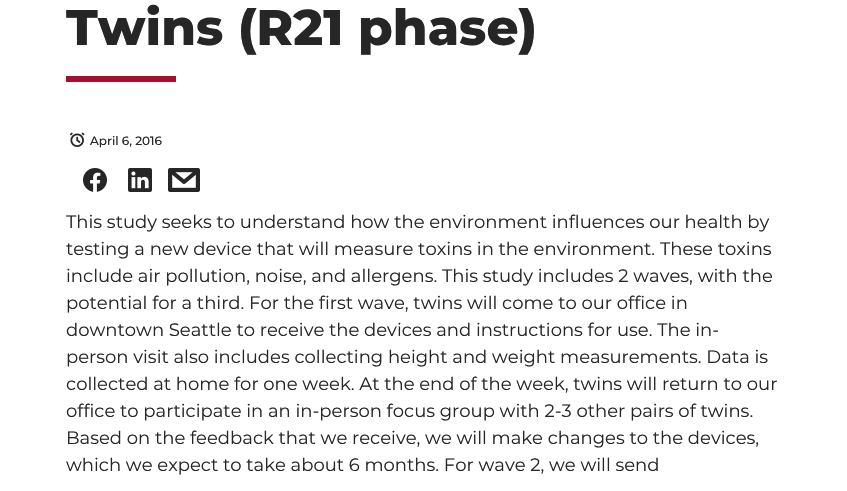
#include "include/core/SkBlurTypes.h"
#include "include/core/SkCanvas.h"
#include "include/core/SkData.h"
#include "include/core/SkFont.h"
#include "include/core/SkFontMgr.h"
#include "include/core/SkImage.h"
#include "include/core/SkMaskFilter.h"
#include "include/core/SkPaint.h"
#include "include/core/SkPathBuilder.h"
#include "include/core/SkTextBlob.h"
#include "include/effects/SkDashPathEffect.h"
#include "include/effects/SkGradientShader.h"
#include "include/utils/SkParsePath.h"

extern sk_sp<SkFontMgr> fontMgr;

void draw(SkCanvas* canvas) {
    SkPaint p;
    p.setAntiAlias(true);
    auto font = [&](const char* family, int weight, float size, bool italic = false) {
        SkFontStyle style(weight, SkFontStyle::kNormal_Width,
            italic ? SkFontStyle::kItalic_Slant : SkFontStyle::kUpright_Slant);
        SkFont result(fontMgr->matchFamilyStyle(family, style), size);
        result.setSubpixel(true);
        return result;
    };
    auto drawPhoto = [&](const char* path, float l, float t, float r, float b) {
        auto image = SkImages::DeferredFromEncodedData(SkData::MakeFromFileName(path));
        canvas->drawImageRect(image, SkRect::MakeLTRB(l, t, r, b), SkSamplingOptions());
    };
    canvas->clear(0xFFFFFFFF);
    auto font1 = font("Montserrat", 800, 50);
    p.setColor(0xFF262626);
    canvas->drawString("Twins (R21 phase)", 66, 45, font1, p);
    p.setColor(0xFFA60F2D);
    canvas->drawRect(SkRect::MakeLTRB(66, 76, 176, 82), p);
    drawPhoto("media/1.png", 70, 132, 85, 147);
    auto font2 = font("Montserrat", 500, 12);
    p.setColor(0xFF262626);
    canvas->drawString("April 6, 2016", 90, 145, font2, p);
    drawPhoto("media/2.png", 83, 168, 107, 192);
    drawPhoto("media/3.png", 128, 168, 152, 192);
    drawPhoto("media/4.png", 168, 168, 200, 192);
    auto font3 = font("Montserrat", 400, 18);
    {
        const struct { const char* s; float x, y; } items[] = {
            {"This study seeks to understand how the environment influences our health by", 66, 228},
            {"testing a new device that will measure toxins in the environment. These toxins", 66, 255},
            {"include air pollution, noise, and allergens. This study includes 2 waves, with the", 66, 282},
            {"potential for a third. For the first wave, twins will come to our office in", 66, 309},
            {"downtown Seattle to receive the devices and instructions for use. The in-", 66, 336},
            {"person visit also includes collecting height and weight measurements. Data is", 66, 363},
            {"collected at home for one week. At the end of the week, twins will return to our", 66, 390},
            {"office to participate in an in-person focus group with 2-3 other pairs of twins.", 66, 417},
            {"Based on the feedback that we receive, we will make changes to the devices,", 66, 444},
            {"which we expect to take about 6 months. For wave 2, we will send", 66, 471},
        };
        for (auto [s, x, y] : items) {
            canvas->drawString(s, x, y, font3, p);
        }
    }
}
